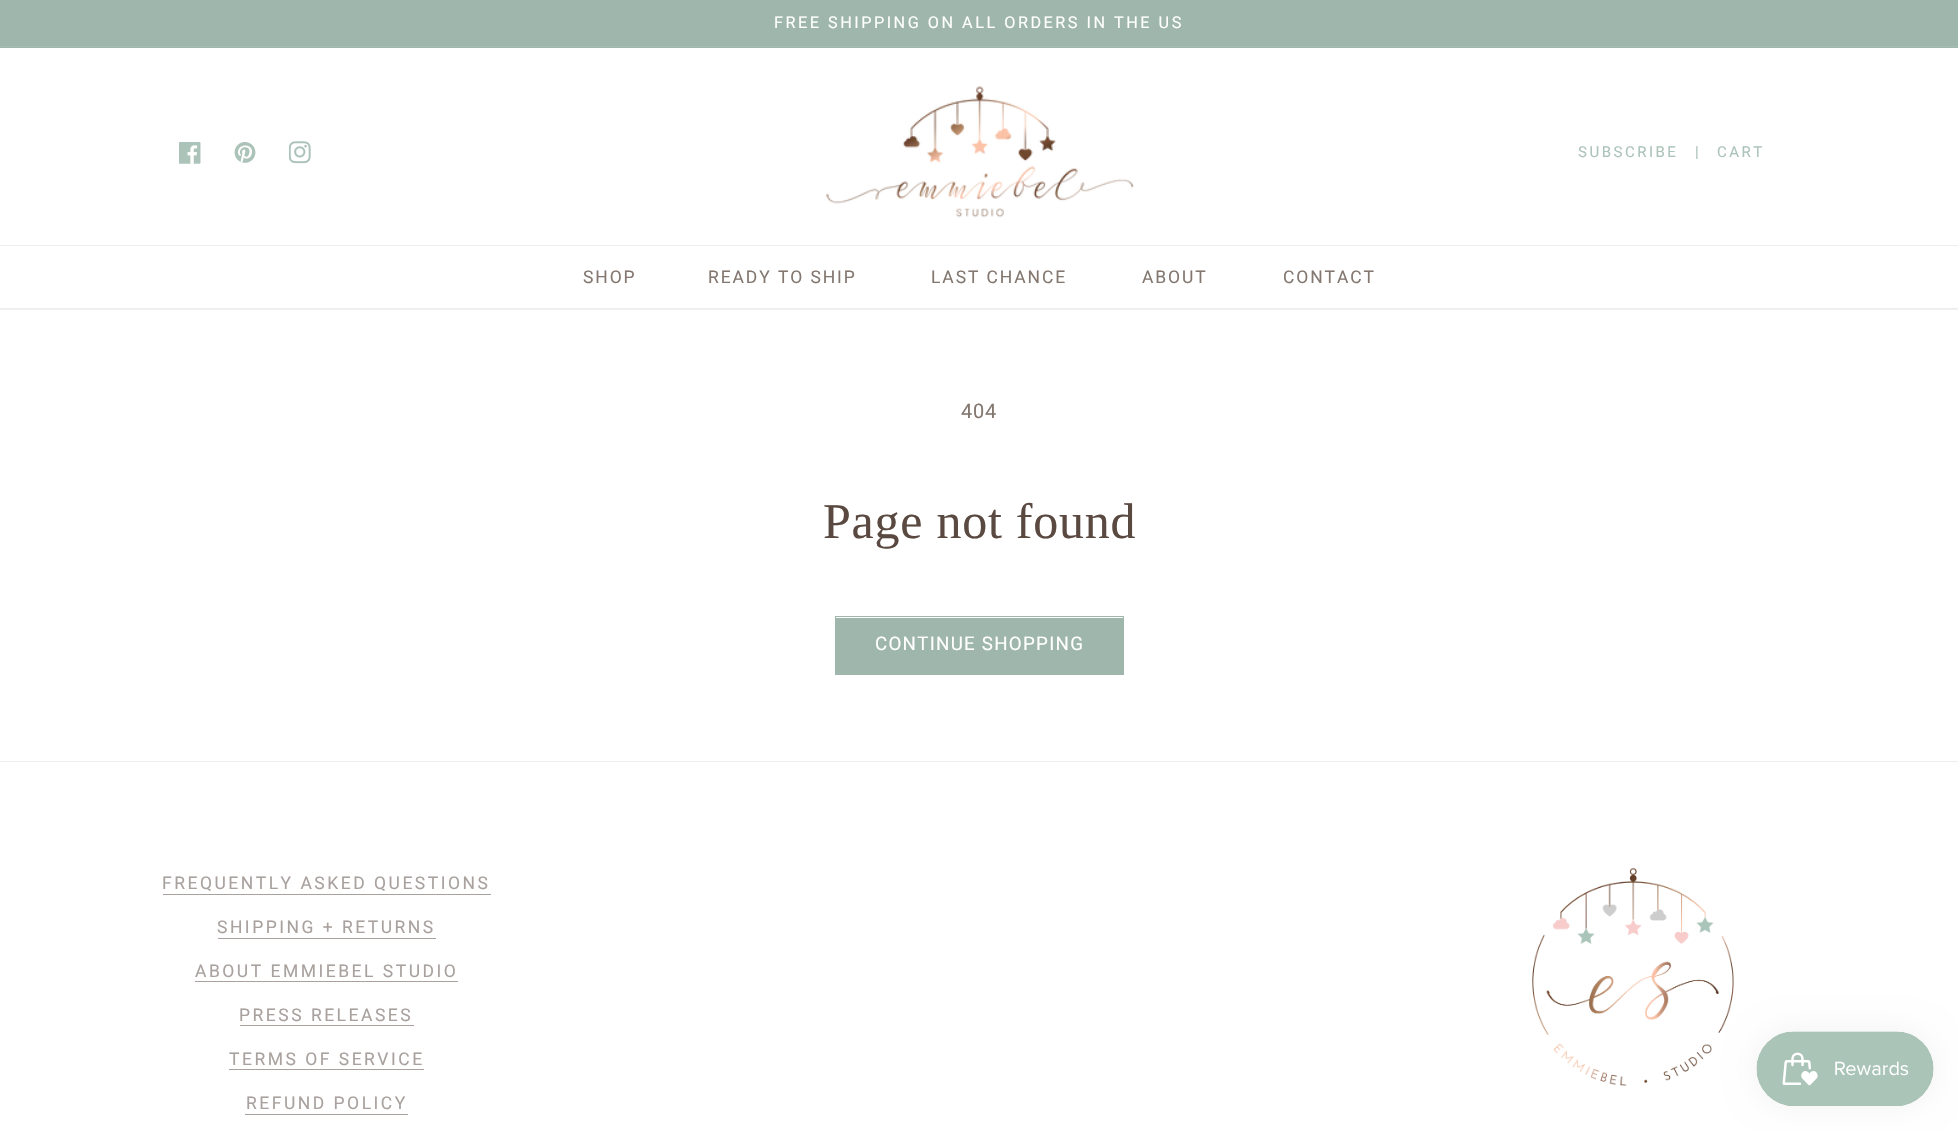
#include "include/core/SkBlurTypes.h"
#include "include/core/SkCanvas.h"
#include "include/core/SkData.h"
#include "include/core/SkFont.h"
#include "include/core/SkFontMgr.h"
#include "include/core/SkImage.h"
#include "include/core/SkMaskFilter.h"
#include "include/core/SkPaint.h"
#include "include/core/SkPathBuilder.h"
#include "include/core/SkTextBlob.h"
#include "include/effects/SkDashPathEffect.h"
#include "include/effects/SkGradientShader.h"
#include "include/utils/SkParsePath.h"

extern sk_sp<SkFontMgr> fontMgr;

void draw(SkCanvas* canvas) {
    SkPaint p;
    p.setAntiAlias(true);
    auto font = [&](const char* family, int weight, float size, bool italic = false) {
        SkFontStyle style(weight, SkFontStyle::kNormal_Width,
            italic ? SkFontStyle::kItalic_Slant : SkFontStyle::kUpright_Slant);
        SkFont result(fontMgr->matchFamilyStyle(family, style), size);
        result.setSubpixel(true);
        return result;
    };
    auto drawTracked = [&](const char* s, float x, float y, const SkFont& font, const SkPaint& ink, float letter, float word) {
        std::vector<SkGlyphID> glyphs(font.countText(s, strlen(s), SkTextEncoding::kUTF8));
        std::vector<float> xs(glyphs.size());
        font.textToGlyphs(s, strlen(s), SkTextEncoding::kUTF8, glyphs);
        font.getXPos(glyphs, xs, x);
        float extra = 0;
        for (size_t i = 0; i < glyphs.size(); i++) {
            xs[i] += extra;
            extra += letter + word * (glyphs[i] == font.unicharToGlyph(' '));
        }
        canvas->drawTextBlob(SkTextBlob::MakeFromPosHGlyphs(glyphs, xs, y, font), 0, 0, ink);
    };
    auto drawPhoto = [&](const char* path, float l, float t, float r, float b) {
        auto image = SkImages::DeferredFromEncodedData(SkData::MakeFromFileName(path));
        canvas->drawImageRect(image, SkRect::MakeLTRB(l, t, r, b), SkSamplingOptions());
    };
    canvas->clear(0xFFFFFFFF);
    p.setColor(0xFF9FB6AC);
    canvas->drawRect(SkRect::MakeLTRB(0, 0, 1958, 48), p);
    p.setColor(0xFFA7BCB3);
    canvas->drawRect(SkRect::MakeLTRB(0, 46, 1958, 47), p);
    auto font1 = font("Roboto", 400, 16.25f);
    p.setColor(0xFFFFFFFF);
    drawTracked("FREE SHIPPING ON ALL ORDERS IN THE US", 774, 28, font1, p, 2.5f, 0);
    p.setColor(0xFFF2F0F0);
    canvas->drawRect(SkRect::MakeLTRB(0, 309, 1958, 310), p);
    drawPhoto("media/1.png", 179, 142, 201, 164);
    drawPhoto("media/2.png", 234, 142, 256, 163);
    drawPhoto("media/3.png", 289, 141, 311, 164);
    drawPhoto("media/4.png", 826, 86, 1134, 218);
    auto font2 = font("Roboto", 400, 15);
    p.setColor(0xFFACC3B9);
    drawTracked("SUBSCRIBE", 1578, 157, font2, p, 2.5f, 0);
    drawTracked("|", 1695, 157, font2, p, 0.75f, 0);
    drawTracked("CART", 1717, 157, font2, p, 2.5f, 0);
    p.setColor(0xFFEEECEC);
    canvas->drawRect(SkRect::MakeLTRB(0, 245, 1958, 246), p);
    canvas->drawRect(SkRect::MakeLTRB(0, 308, 1958, 309), p);
    auto font3 = font("Roboto", 400, 17.5f);
    p.setColor(0xFF837770);
    {
        const struct { const char* s; float x, y; } items[] = {
            {"SHOP", 583, 283},
            {"READY TO SHIP", 708, 283},
            {"LAST CHANCE", 931, 283},
            {"ABOUT", 1142, 283},
            {"CONTACT", 1283, 283},
        };
        for (auto [s, x, y] : items) {
            drawTracked(s, x, y, font3, p, 1.9f, 0);
        }
    }
    auto font4 = font("Roboto", 400, 20);
    drawTracked("404", 961, 418, font4, p, 0.75f, 0);
    auto font5 = font("Liberation Serif", 400, 50);
    p.setColor(0xFF594940);
    drawTracked("Page not found", 823, 538, font5, p, 0.75f, 0);
    p.setStyle(SkPaint::kStroke_Style);
    p.setStrokeWidth(1);
    p.setColor(0xFF9FB6AC);
    canvas->drawRect(SkRect::MakeLTRB(835.5f, 616.5f, 1123.5f, 674.5f), p);
    p.setStyle(SkPaint::kFill_Style);
    canvas->drawRect(SkRect::MakeLTRB(836, 618, 1123, 674), p);
    auto font6 = font("Roboto", 400, 18.75f);
    p.setColor(0xFFFFFFFF);
    drawTracked("CONTINUE SHOPPING", 875, 650, font6, p, 1.25f, 0);
    p.setColor(0xFFEEECEC);
    canvas->drawRect(SkRect::MakeLTRB(0, 761, 1958, 762), p);
    p.setColor(0xFFA8A19E);
    drawTracked("FREQUENTLY ASKED QUESTIONS", 162, 889, font3, p, 2.5f, 0);
    canvas->drawRect(SkRect::MakeLTRB(163, 894, 491, 895), p);
    drawTracked("SHIPPING + RETURNS", 217, 933, font3, p, 2.5f, 0);
    canvas->drawRect(SkRect::MakeLTRB(218, 938, 436, 939), p);
    drawTracked("ABOUT EMMIEBEL STUDIO", 195, 977, font3, p, 2.5f, 0);
    canvas->drawRect(SkRect::MakeLTRB(195, 981, 458, 982), p);
    drawTracked("PRESS RELEASES", 239, 1021, font3, p, 2.5f, 0);
    canvas->drawRect(SkRect::MakeLTRB(240, 1025, 414, 1026), p);
    drawTracked("TERMS OF SERVICE", 229, 1065, font3, p, 2.5f, 0);
    canvas->drawRect(SkRect::MakeLTRB(229, 1069, 424, 1070), p);
    drawTracked("REFUND POLICY", 246, 1109, font3, p, 2.5f, 0);
    canvas->drawRect(SkRect::MakeLTRB(245, 1114, 408, 1115), p);
    drawPhoto("media/5.png", 1532, 867, 1734, 1086);
    p.setColor(0x0D000000);
    p.setMaskFilter(SkMaskFilter::MakeBlur(kNormal_SkBlurStyle, 15.5f));
    canvas->drawRoundRect(SkRect::MakeLTRB(1756, 1031, 1934, 1106), 37.5f, 37.5f, p);
    p.setMaskFilter(nullptr);
    drawPhoto("media/6.png", 1756, 1031, 1934, 1106);
}
